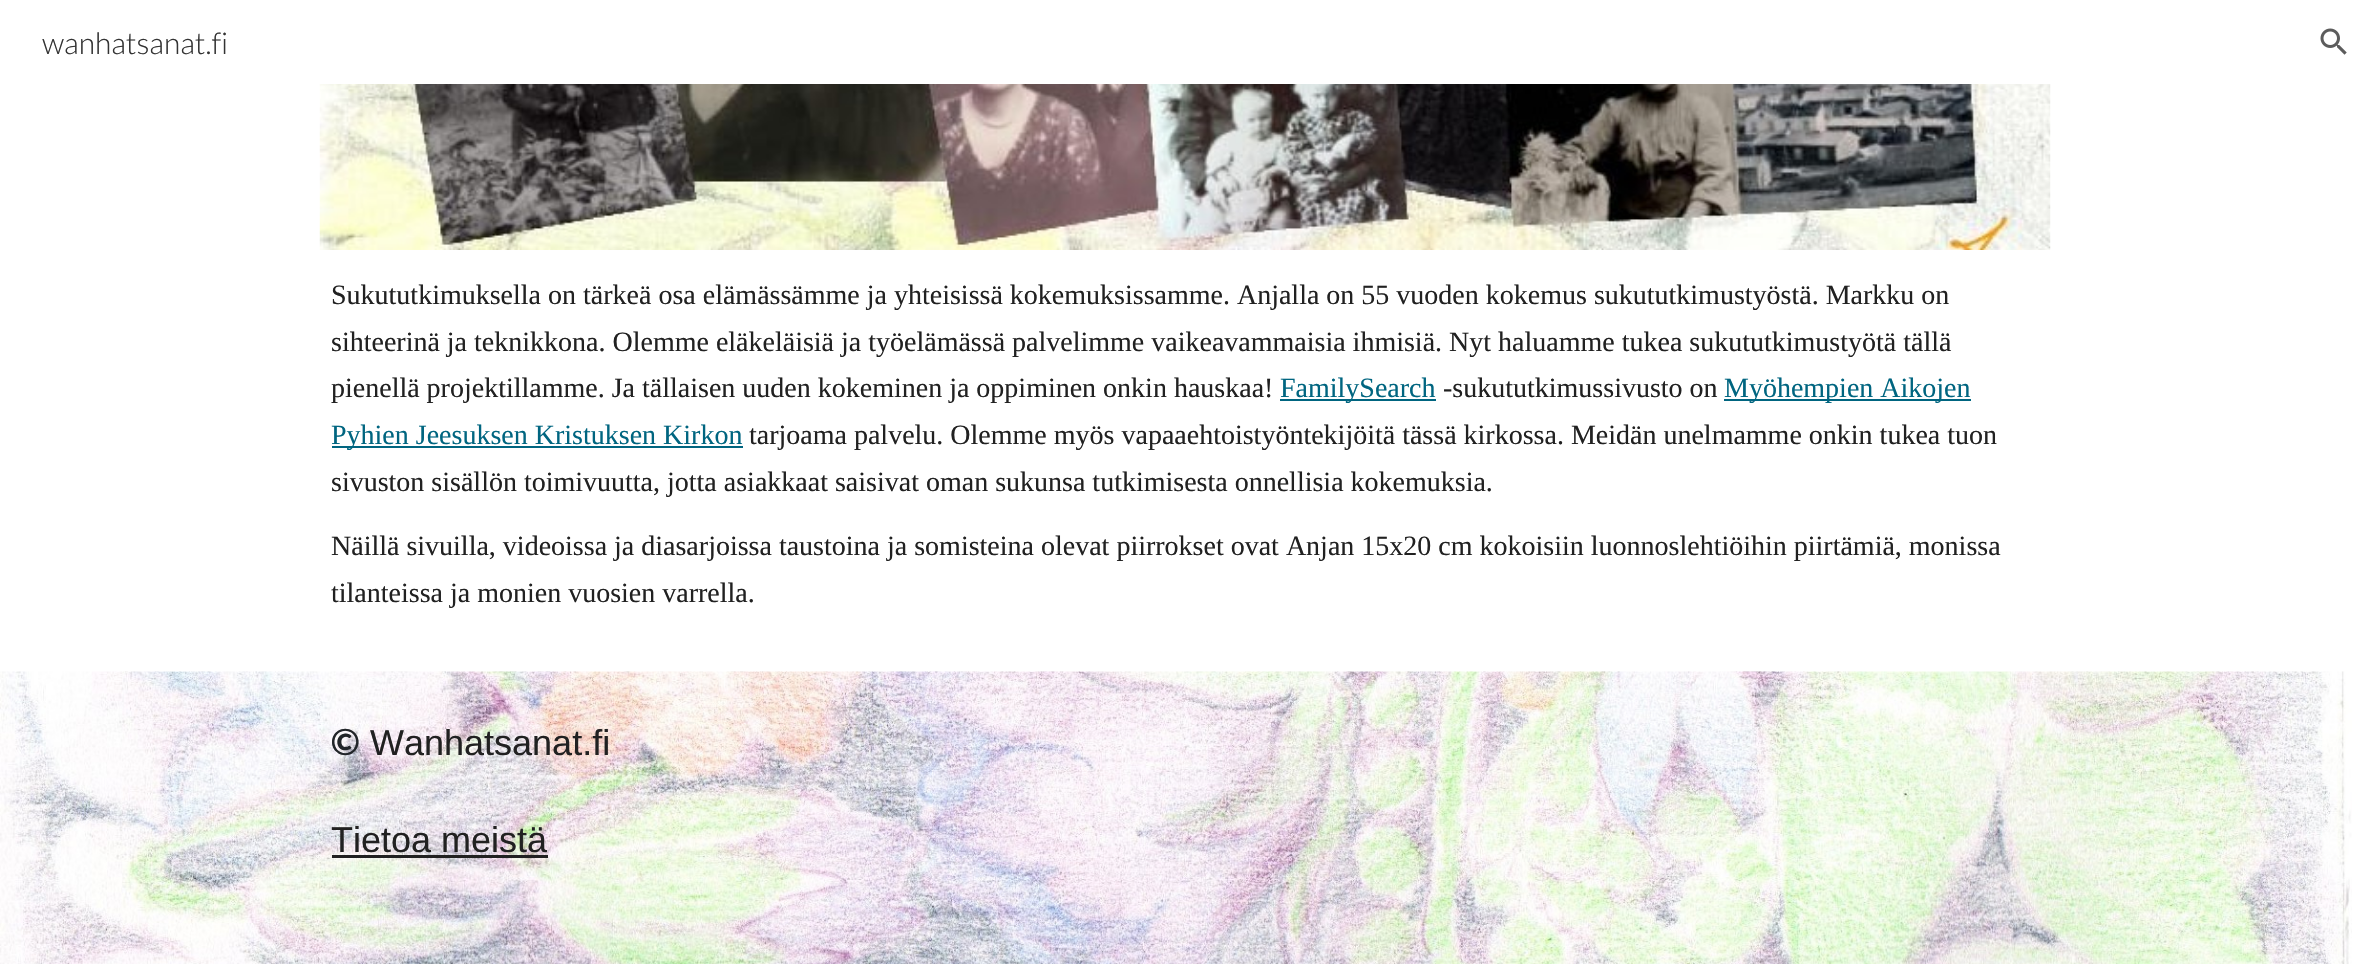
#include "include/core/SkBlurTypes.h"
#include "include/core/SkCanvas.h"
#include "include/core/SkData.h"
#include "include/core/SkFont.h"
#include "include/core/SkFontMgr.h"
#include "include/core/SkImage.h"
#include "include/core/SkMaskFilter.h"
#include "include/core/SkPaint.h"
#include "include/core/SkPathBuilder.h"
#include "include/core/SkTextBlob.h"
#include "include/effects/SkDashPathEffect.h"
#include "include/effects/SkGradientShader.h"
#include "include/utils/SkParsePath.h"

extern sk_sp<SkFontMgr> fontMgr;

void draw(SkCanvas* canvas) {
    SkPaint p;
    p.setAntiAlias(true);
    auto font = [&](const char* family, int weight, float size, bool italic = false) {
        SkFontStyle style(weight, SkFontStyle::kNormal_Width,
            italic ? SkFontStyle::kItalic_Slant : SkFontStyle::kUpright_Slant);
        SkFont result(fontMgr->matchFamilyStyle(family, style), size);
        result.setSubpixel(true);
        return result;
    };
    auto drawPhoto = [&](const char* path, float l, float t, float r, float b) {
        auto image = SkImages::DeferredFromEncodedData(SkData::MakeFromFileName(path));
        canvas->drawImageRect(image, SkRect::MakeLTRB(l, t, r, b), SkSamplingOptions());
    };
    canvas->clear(0xFFFFFFFF);
    auto font1 = font("Lato", 300, 30);
    p.setColor(0xFF333333);
    canvas->drawString("wanhatsanat.fi", 42, 54, font1, p);
    drawPhoto("media/1.png", 2320, 28, 2347, 55);
    drawPhoto("media/2.png", 319, 84, 2051, 250);
    auto font2 = font("Liberation Serif", 400, 28);
    p.setColor(0xFF212121);
    {
        const struct { const char* s; float x, y; } items[] = {
            {"Sukututkimuksella on tärkeä osa elämässämme ja yhteisissä kokemuksissamme. Anjalla on 55 vuoden kokemus sukututkimustyöstä. Markku on", 331, 304},
            {"sihteerinä ja teknikkona. Olemme eläkeläisiä ja työelämässä palvelimme vaikeavammaisia ihmisiä. Nyt haluamme tukea sukututkimustyötä tällä", 331, 351},
            {"pienellä projektillamme. Ja tällaisen uuden kokeminen ja oppiminen onkin hauskaa!", 331, 397},
        };
        for (auto [s, x, y] : items) {
            canvas->drawString(s, x, y, font2, p);
        }
    }
    p.setColor(0xFF006580);
    canvas->drawRect(SkRect::MakeLTRB(1280, 399, 1436, 401), p);
    canvas->drawString("FamilySearch", 1280, 397, font2, p);
    p.setColor(0xFF212121);
    canvas->drawString("-sukututkimussivusto on", 1443, 397, font2, p);
    p.setColor(0xFF006580);
    canvas->drawRect(SkRect::MakeLTRB(1724, 399, 1971, 401), p);
    canvas->drawString("Myöhempien Aikojen", 1724, 397, font2, p);
    canvas->drawRect(SkRect::MakeLTRB(332, 446, 743, 448), p);
    canvas->drawString("Pyhien Jeesuksen Kristuksen Kirkon", 331, 444, font2, p);
    p.setColor(0xFF212121);
    {
        const struct { const char* s; float x, y; } items[] = {
            {"tarjoama palvelu. Olemme myös vapaaehtoistyöntekijöitä tässä kirkossa. Meidän unelmamme onkin tukea tuon", 749, 444},
            {"sivuston sisällön toimivuutta, jotta asiakkaat saisivat oman sukunsa tutkimisesta onnellisia kokemuksia.", 331, 491},
            {"Näillä sivuilla, videoissa ja diasarjoissa taustoina ja somisteina olevat piirrokset ovat Anjan 15x20 cm kokoisiin luonnoslehtiöihin piirtämiä, monissa", 331, 555},
            {"tilanteissa ja monien vuosien varrella.", 331, 602},
        };
        for (auto [s, x, y] : items) {
            canvas->drawString(s, x, y, font2, p);
        }
    }
    drawPhoto("media/3.png", 0, 671, 2352, 964);
    auto font3 = font("Lato", 700, 36);
    p.setColor(0xFF212529);
    canvas->drawString("©", 331, 755, font3, p);
    auto font4 = font("Liberation Sans", 400, 36);
    p.setColor(0xFF212121);
    canvas->drawString("Wanhatsanat.fi", 370, 755, font4, p);
    canvas->drawString("Tietoa meistä", 331, 852, font4, p);
    canvas->drawRect(SkRect::MakeLTRB(332, 855, 548, 858), p);
}
